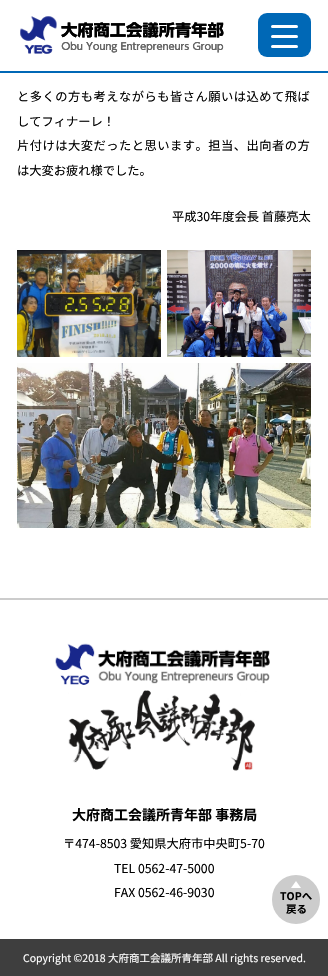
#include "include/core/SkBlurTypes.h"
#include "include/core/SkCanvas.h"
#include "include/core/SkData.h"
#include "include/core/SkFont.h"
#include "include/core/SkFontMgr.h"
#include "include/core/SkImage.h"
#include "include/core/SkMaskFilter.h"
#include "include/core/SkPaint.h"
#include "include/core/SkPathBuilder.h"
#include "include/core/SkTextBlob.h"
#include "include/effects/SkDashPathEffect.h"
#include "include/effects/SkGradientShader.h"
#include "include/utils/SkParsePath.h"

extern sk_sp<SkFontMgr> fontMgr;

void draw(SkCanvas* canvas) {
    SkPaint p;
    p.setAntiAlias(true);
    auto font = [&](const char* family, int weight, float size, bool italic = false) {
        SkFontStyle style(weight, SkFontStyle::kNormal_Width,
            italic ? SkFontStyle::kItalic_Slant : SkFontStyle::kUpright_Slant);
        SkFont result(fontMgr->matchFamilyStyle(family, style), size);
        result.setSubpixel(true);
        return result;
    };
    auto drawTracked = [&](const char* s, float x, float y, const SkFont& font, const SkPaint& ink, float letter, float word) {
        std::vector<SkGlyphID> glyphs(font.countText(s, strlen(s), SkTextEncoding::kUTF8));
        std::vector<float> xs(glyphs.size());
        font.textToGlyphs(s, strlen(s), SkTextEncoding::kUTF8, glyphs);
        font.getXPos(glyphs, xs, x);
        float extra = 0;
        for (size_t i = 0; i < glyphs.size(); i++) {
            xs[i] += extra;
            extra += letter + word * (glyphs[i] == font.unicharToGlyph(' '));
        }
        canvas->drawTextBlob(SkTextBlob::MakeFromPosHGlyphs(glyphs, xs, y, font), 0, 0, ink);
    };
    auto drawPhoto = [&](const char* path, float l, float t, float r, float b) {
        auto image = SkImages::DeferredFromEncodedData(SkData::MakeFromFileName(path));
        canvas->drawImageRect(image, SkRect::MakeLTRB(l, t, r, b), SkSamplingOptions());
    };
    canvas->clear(0xFFFFFFFF);
    p.setColor(0xFF0068B6);
    canvas->drawRect(SkRect::MakeLTRB(0, 71, 328, 73), p);
    drawPhoto("media/1.png", 20, 16, 224, 54);
    drawPhoto("media/2.png", 20, 16, 224, 54);
    canvas->drawRoundRect(SkRect::MakeLTRB(258, 13, 311, 57), 9, 9, p);
    p.setColor(0xFFFFFFFF);
    canvas->drawRoundRect(SkRect::MakeLTRB(271, 25, 298, 28), 1.5f, 1.5f, p);
    canvas->drawRoundRect(SkRect::MakeLTRB(271, 35, 298, 38), 1.5f, 1.5f, p);
    canvas->drawRoundRect(SkRect::MakeLTRB(271, 45, 298, 48), 1.5f, 1.5f, p);
    auto font1 = font("Noto Sans JP", 400, 12.25f);
    p.setColor(0xFF000000);
    drawTracked("と多くの方も考えながらも皆さん願いは込めて飛ば", 17, 101, font1, p, 0.5f, 0);
    canvas->drawString("してフィナーレ！", 17, 126, font1, p);
    drawTracked("片付けは大変だったと思います。担当、出向者の方", 17, 150, font1, p, 0.5f, 0);
    canvas->drawString("は大変お疲れ様でした。", 17, 175, font1, p);
    canvas->drawString("平成30年度会長 首藤亮太", 172, 221, font1, p);
    drawPhoto("media/3.png", 17, 250, 161, 357);
    drawPhoto("media/4.png", 167, 250, 311, 357);
    drawPhoto("media/5.png", 17, 363, 311, 528);
    p.setColor(0xFFCCCCCC);
    canvas->drawRect(SkRect::MakeLTRB(0, 598, 328, 600), p);
    drawPhoto("media/6.png", 55, 643, 270, 771);
    auto font2 = font("Noto Sans JP", 700, 14);
    p.setColor(0xFF000000);
    canvas->drawString("大府商工会議所青年部 事務局", 72, 820, font2, p);
    {
        const struct { const char* s; float x, y; } items[] = {
            {"〒474-8503 愛知県大府市中央町5-70", 63, 848},
            {"TEL 0562-47-5000", 114, 873},
            {"FAX 0562-46-9030", 114, 897},
        };
        for (auto [s, x, y] : items) {
            canvas->drawString(s, x, y, font1, p);
        }
    }
    p.setColor(0xFF3E3E3E);
    canvas->drawRect(SkRect::MakeLTRB(0, 939, 328, 976), p);
    auto font3 = font("Noto Sans JP", 400, 10.5f);
    p.setColor(0xFFFFFFFF);
    canvas->drawString("Copyright ©2018 大府商工会議所青年部 All rights reserved.", 23, 962, font3, p);
    p.setColor(0xFFCCCCCC);
    canvas->drawRoundRect(SkRect::MakeLTRB(272, 875, 320, 924), 24, 24, p);
    p.setColor(0xFFFFFFFF);
    canvas->drawPath(SkPathBuilder().moveTo(301, 888).lineTo(291, 888).lineTo(296, 881).close().detach(), p);
    auto font4 = font("Noto Sans JP", 700, 10.5f);
    p.setColor(0xFF000000);
    canvas->drawString("TOPへ", 280, 900, font4, p);
    canvas->drawString("戻る", 286, 913, font4, p);
}
